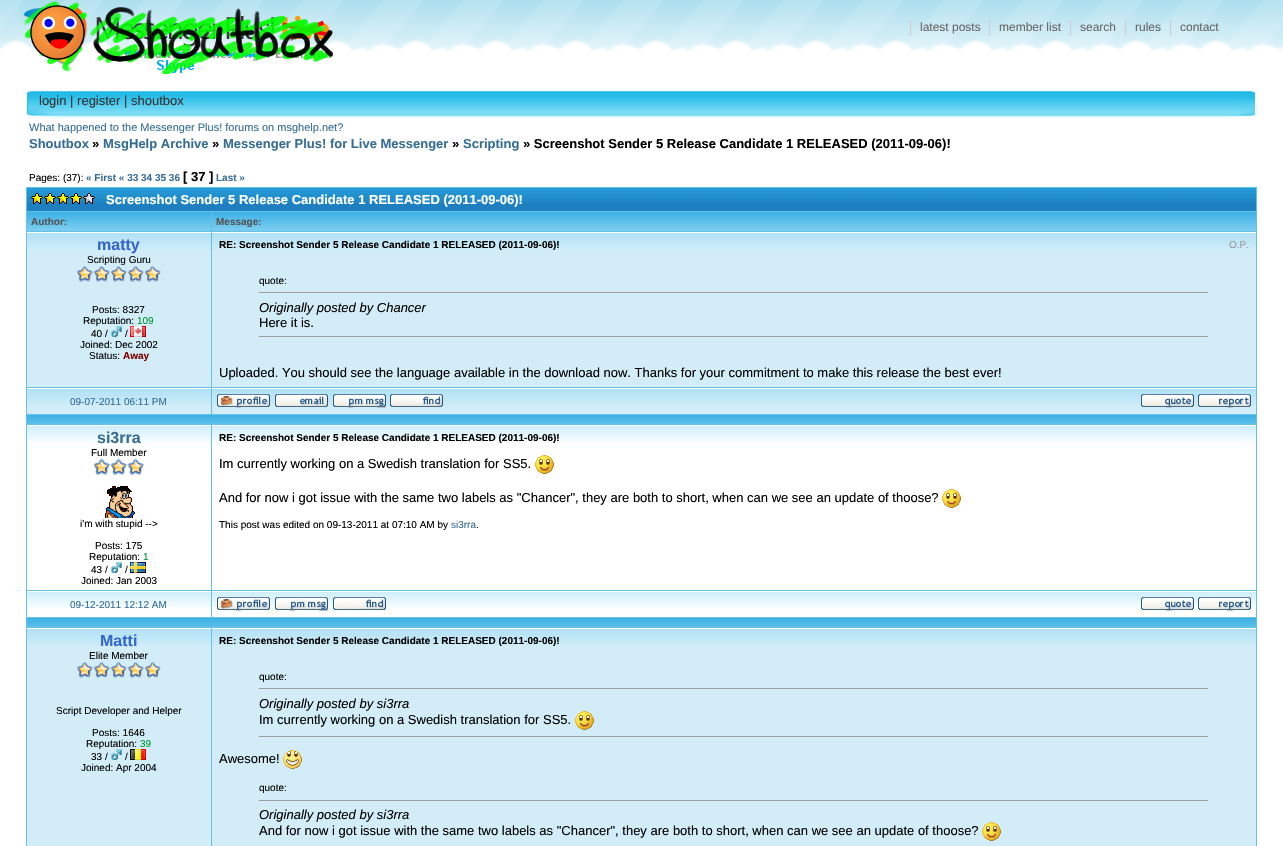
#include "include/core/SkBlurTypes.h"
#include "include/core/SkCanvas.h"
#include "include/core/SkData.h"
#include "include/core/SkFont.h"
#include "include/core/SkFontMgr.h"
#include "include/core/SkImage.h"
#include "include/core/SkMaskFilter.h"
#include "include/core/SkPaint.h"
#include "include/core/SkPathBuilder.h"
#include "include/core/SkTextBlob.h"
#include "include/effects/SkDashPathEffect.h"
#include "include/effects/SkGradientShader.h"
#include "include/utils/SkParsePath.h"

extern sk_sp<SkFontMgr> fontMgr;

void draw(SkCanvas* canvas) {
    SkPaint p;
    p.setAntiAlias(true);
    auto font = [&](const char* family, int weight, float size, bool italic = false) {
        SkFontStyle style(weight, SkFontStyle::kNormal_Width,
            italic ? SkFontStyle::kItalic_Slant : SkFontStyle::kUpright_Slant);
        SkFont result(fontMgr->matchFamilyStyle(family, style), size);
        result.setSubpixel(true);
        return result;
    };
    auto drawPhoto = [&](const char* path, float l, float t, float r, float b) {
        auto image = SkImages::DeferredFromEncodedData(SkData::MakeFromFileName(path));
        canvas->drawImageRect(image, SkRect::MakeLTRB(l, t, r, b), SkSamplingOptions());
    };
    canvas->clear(0xFFFFFFFF);
    drawPhoto("media/1.png", 0, 0, 1283, 51);
    drawPhoto("media/2.png", 23, 1, 333, 74);
    p.setColor(0xFFCCCCCC);
    canvas->drawRect(SkRect::MakeLTRB(910, 20, 911, 36), p);
    auto font1 = font("Liberation Sans", 400, 12);
    p.setColor(0xFF666666);
    canvas->drawString("latest posts", 920, 31, font1, p);
    p.setColor(0xFFCCCCCC);
    canvas->drawRect(SkRect::MakeLTRB(989, 20, 990, 36), p);
    p.setColor(0xFF666666);
    canvas->drawString("member list", 999, 31, font1, p);
    p.setColor(0xFFCCCCCC);
    canvas->drawRect(SkRect::MakeLTRB(1070, 20, 1071, 36), p);
    p.setColor(0xFF666666);
    canvas->drawString("search", 1080, 31, font1, p);
    p.setColor(0xFFCCCCCC);
    canvas->drawRect(SkRect::MakeLTRB(1125, 20, 1126, 36), p);
    p.setColor(0xFF666666);
    canvas->drawString("rules", 1135, 31, font1, p);
    p.setColor(0xFFCCCCCC);
    canvas->drawRect(SkRect::MakeLTRB(1170, 20, 1171, 36), p);
    p.setColor(0xFF666666);
    canvas->drawString("contact", 1180, 31, font1, p);
    drawPhoto("media/3.png", 66, 91, 1230, 119);
    drawPhoto("media/4.png", 1230, 91, 1257, 119);
    drawPhoto("media/5.png", 26, 91, 66, 119);
    auto font2 = font("Liberation Sans", 400, 13);
    p.setColor(0xFF333333);
    canvas->drawString("login | register | shoutbox", 39, 105, font2, p);
    auto font3 = font("Liberation Sans", 400, 11);
    p.setColor(0xFF376D95);
    canvas->drawString("What happened to the Messenger Plus! forums on msghelp.net?", 29, 131, font3, p);
    auto font4 = font("Liberation Sans", 700, 13);
    canvas->drawString("Shoutbox", 29, 148, font4, p);
    p.setColor(0xFF000000);
    canvas->drawString("»", 92, 148, font4, p);
    p.setColor(0xFF376D95);
    canvas->drawString("MsgHelp Archive", 103, 148, font4, p);
    p.setColor(0xFF000000);
    canvas->drawString("»", 212, 148, font4, p);
    p.setColor(0xFF376D95);
    canvas->drawString("Messenger Plus! for Live Messenger", 223, 148, font4, p);
    p.setColor(0xFF000000);
    canvas->drawString("»", 452, 148, font4, p);
    p.setColor(0xFF376D95);
    canvas->drawString("Scripting", 463, 148, font4, p);
    p.setColor(0xFF000000);
    canvas->drawString("» Screenshot Sender 5 Release Candidate 1 RELEASED (2011-09-06)!", 523, 148, font4, p);
    auto font5 = font("Liberation Sans", 400, 10);
    canvas->drawString("Pages: (37):", 29, 181, font5, p);
    auto font6 = font("Liberation Sans", 700, 10);
    p.setColor(0xFF376D95);
    canvas->drawString("« First « 33 34 35 36", 86, 181, font6, p);
    p.setColor(0xFF000000);
    canvas->drawString("[ 37 ]", 183, 181, font4, p);
    p.setColor(0xFF376D95);
    canvas->drawString("Last »", 216, 181, font6, p);
    p.setColor(0xFF67C1E4);
    canvas->drawRect(SkRect::MakeLTRB(26, 187, 1257, 846), p);
    p.setColor(0xFF1D7FBF);
    canvas->drawRect(SkRect::MakeLTRB(27, 203, 1256, 211), p);
    drawPhoto("media/6.png", 27, 188, 1256, 203);
    drawPhoto("media/7.png", 31, 193, 95, 204);
    p.setColor(0xFFFFFFFF);
    canvas->drawString("Screenshot Sender 5 Release Candidate 1 RELEASED (2011-09-06)!", 106, 204, font4, p);
    p.setColor(0xFF79CCF0);
    canvas->drawRect(SkRect::MakeLTRB(27, 228, 211, 231), p);
    drawPhoto("media/8.png", 27, 212, 211, 228);
    p.setColor(0xFF555555);
    canvas->drawString("Author:", 31, 225, font6, p);
    p.setColor(0xFF79CCF0);
    canvas->drawRect(SkRect::MakeLTRB(212, 228, 1256, 231), p);
    drawPhoto("media/9.png", 212, 212, 1256, 228);
    p.setColor(0xFF555555);
    canvas->drawString("Message:", 216, 225, font6, p);
    p.setColor(0xFFD2EDF7);
    canvas->drawRect(SkRect::MakeLTRB(27, 250, 211, 387), p);
    drawPhoto("media/10.png", 27, 232, 211, 250);
    auto font7 = font("Liberation Sans", 700, 16);
    p.setColor(0xFF3366CC);
    canvas->drawString("matty", 97, 250, font7, p);
    p.setColor(0xFF000000);
    canvas->drawString("Scripting Guru", 87, 263, font5, p);
    drawPhoto("media/11.png", 76, 265, 93, 282);
    drawPhoto("media/12.png", 93, 265, 110, 282);
    drawPhoto("media/13.png", 110, 265, 127, 282);
    drawPhoto("media/11.png", 127, 265, 144, 282);
    drawPhoto("media/11.png", 144, 265, 161, 282);
    canvas->drawString("Posts: 8327", 92, 313, font5, p);
    canvas->drawString("Reputation:", 83, 324, font5, p);
    p.setColor(0xFF009933);
    canvas->drawString("109", 137, 324, font5, p);
    p.setColor(0xFF000000);
    canvas->drawString("40 /", 91, 337, font5, p);
    drawPhoto("media/14.png", 111, 326, 122, 337);
    canvas->drawString("/", 125, 337, font5, p);
    drawPhoto("media/15.png", 130, 326, 146, 337);
    canvas->drawString("Joined: Dec 2002", 80, 348, font5, p);
    canvas->drawString("Status:", 89, 359, font5, p);
    p.setColor(0xFF800000);
    canvas->drawString("Away", 123, 359, font6, p);
    p.setColor(0xFFD2EDF7);
    canvas->drawRect(SkRect::MakeLTRB(212, 250, 1256, 387), p);
    drawPhoto("media/16.png", 212, 232, 1256, 250);
    p.setColor(0xFF000000);
    canvas->drawString("RE: Screenshot Sender 5 Release Candidate 1 RELEASED (2011-09-06)!", 219, 248, font6, p);
    p.setColor(0xFF999999);
    canvas->drawString("O.P.", 1229, 248, font5, p);
    p.setColor(0xFF000000);
    canvas->drawString("quote:", 259, 284, font5, p);
    p.setColor(0xFF9F9F9F);
    canvas->drawRect(SkRect::MakeLTRB(259, 292, 1209, 293), p);
    p.setColor(0xFFEEEEEE);
    canvas->drawRect(SkRect::MakeLTRB(1208, 292, 1209, 293), p);
    auto font8 = font("Liberation Sans", 400, 13, true);
    p.setColor(0xFF000000);
    canvas->drawString("Originally posted by Chancer", 259, 312, font8, p);
    canvas->drawString("Here it is.", 259, 327, font2, p);
    p.setColor(0xFF9F9F9F);
    canvas->drawRect(SkRect::MakeLTRB(259, 336, 1209, 337), p);
    p.setColor(0xFFEEEEEE);
    canvas->drawRect(SkRect::MakeLTRB(1208, 336, 1209, 337), p);
    p.setColor(0xFF000000);
    canvas->drawString("Uploaded. You should see the language available in the download now. Thanks for your commitment to make this release the best ever!", 219, 377, font2, p);
    p.setColor(0xFFD2EDF7);
    canvas->drawRect(SkRect::MakeLTRB(27, 406, 211, 414), p);
    drawPhoto("media/10.png", 27, 388, 211, 406);
    p.setColor(0xFF376D95);
    canvas->drawString("09-07-2011 06:11 PM", 70, 405, font5, p);
    p.setColor(0xFFD2EDF7);
    canvas->drawRect(SkRect::MakeLTRB(212, 406, 1256, 414), p);
    drawPhoto("media/16.png", 212, 388, 1256, 406);
    drawPhoto("media/17.png", 217, 394, 270, 408);
    drawPhoto("media/18.png", 275, 394, 328, 407);
    drawPhoto("media/19.png", 333, 394, 386, 408);
    drawPhoto("media/20.png", 390, 394, 443, 407);
    drawPhoto("media/21.png", 1141, 394, 1194, 408);
    drawPhoto("media/22.png", 1198, 394, 1251, 408);
    drawPhoto("media/23.png", 27, 415, 1256, 424);
    p.setColor(0xFFFFFFFF);
    canvas->drawRect(SkRect::MakeLTRB(27, 425, 211, 590), p);
    drawPhoto("media/24.png", 27, 426, 211, 443);
    p.setColor(0xFF376D95);
    canvas->drawString("si3rra", 97, 443, font7, p);
    p.setColor(0xFF000000);
    canvas->drawString("Full Member", 91, 456, font5, p);
    drawPhoto("media/25.png", 93, 458, 110, 475);
    drawPhoto("media/25.png", 110, 458, 127, 475);
    drawPhoto("media/25.png", 127, 458, 144, 475);
    drawPhoto("media/26.png", 105, 486, 135, 518);
    {
        const struct { const char* s; float x, y; } items[] = {
            {"i'm with stupid -->", 80, 527},
            {"Posts: 175", 95, 549},
            {"Reputation:", 89, 560},
        };
        for (auto [s, x, y] : items) {
            canvas->drawString(s, x, y, font5, p);
        }
    }
    p.setColor(0xFF009933);
    canvas->drawString("1", 143, 560, font5, p);
    p.setColor(0xFF000000);
    canvas->drawString("43 /", 91, 573, font5, p);
    drawPhoto("media/27.png", 111, 562, 122, 573);
    canvas->drawString("/", 125, 573, font5, p);
    drawPhoto("media/28.png", 130, 562, 146, 573);
    canvas->drawString("Joined: Jan 2003", 81, 584, font5, p);
    p.setColor(0xFFFFFFFF);
    canvas->drawRect(SkRect::MakeLTRB(212, 425, 1256, 590), p);
    drawPhoto("media/29.png", 212, 426, 1256, 443);
    p.setColor(0xFF000000);
    canvas->drawString("RE: Screenshot Sender 5 Release Candidate 1 RELEASED (2011-09-06)!", 219, 441, font6, p);
    canvas->drawString("Im currently working on a Swedish translation for SS5.", 219, 468, font2, p);
    drawPhoto("media/30.png", 535, 455, 554, 474);
    canvas->drawString("And for now i got issue with the same two labels as \"Chancer\", they are both to short, when can we see an update of thoose?", 219, 502, font2, p);
    drawPhoto("media/30.png", 942, 489, 961, 508);
    canvas->drawString("This post was edited on 09-13-2011 at 07:10 AM by", 219, 528, font5, p);
    p.setColor(0xFF376D95);
    canvas->drawString("si3rra", 451, 528, font5, p);
    p.setColor(0xFF000000);
    canvas->drawString(".", 476, 528, font5, p);
    p.setColor(0xFFFFFFFF);
    canvas->drawRect(SkRect::MakeLTRB(27, 591, 211, 617), p);
    drawPhoto("media/24.png", 27, 592, 211, 609);
    p.setColor(0xFF376D95);
    canvas->drawString("09-12-2011 12:12 AM", 70, 608, font5, p);
    p.setColor(0xFFFFFFFF);
    canvas->drawRect(SkRect::MakeLTRB(212, 591, 1256, 617), p);
    drawPhoto("media/29.png", 212, 592, 1256, 609);
    drawPhoto("media/31.png", 217, 597, 270, 611);
    drawPhoto("media/32.png", 275, 597, 328, 611);
    drawPhoto("media/33.png", 333, 597, 386, 610);
    drawPhoto("media/34.png", 1141, 597, 1194, 611);
    drawPhoto("media/35.png", 1198, 597, 1251, 611);
    drawPhoto("media/23.png", 27, 618, 1256, 627);
    p.setColor(0xFFD2EDF7);
    canvas->drawRect(SkRect::MakeLTRB(27, 646, 211, 846), p);
    drawPhoto("media/10.png", 27, 628, 211, 646);
    p.setColor(0xFF3366CC);
    canvas->drawString("Matti", 100, 646, font7, p);
    p.setColor(0xFF000000);
    canvas->drawString("Elite Member", 89, 659, font5, p);
    drawPhoto("media/11.png", 76, 661, 93, 678);
    drawPhoto("media/11.png", 93, 661, 110, 678);
    drawPhoto("media/11.png", 110, 661, 127, 678);
    drawPhoto("media/11.png", 127, 661, 144, 678);
    drawPhoto("media/11.png", 144, 661, 161, 678);
    {
        const struct { const char* s; float x, y; } items[] = {
            {"Script Developer and Helper", 56, 714},
            {"Posts: 1646", 92, 736},
            {"Reputation:", 86, 747},
        };
        for (auto [s, x, y] : items) {
            canvas->drawString(s, x, y, font5, p);
        }
    }
    p.setColor(0xFF009933);
    canvas->drawString("39", 140, 747, font5, p);
    p.setColor(0xFF000000);
    canvas->drawString("33 /", 91, 760, font5, p);
    drawPhoto("media/14.png", 111, 749, 122, 760);
    canvas->drawString("/", 125, 760, font5, p);
    drawPhoto("media/36.png", 130, 749, 146, 760);
    canvas->drawString("Joined: Apr 2004", 81, 771, font5, p);
    p.setColor(0xFFD2EDF7);
    canvas->drawRect(SkRect::MakeLTRB(212, 646, 1256, 846), p);
    drawPhoto("media/16.png", 212, 628, 1256, 646);
    p.setColor(0xFF000000);
    canvas->drawString("RE: Screenshot Sender 5 Release Candidate 1 RELEASED (2011-09-06)!", 219, 644, font6, p);
    canvas->drawString("quote:", 259, 680, font5, p);
    p.setColor(0xFF9F9F9F);
    canvas->drawRect(SkRect::MakeLTRB(259, 688, 1209, 689), p);
    p.setColor(0xFFEEEEEE);
    canvas->drawRect(SkRect::MakeLTRB(1208, 688, 1209, 689), p);
    p.setColor(0xFF000000);
    canvas->drawString("Originally posted by si3rra", 259, 708, font8, p);
    canvas->drawString("Im currently working on a Swedish translation for SS5.", 259, 724, font2, p);
    drawPhoto("media/37.png", 575, 711, 594, 730);
    p.setColor(0xFF9F9F9F);
    canvas->drawRect(SkRect::MakeLTRB(259, 736, 1209, 737), p);
    p.setColor(0xFFEEEEEE);
    canvas->drawRect(SkRect::MakeLTRB(1208, 736, 1209, 737), p);
    p.setColor(0xFF000000);
    canvas->drawString("Awesome!", 219, 763, font2, p);
    drawPhoto("media/38.png", 283, 750, 302, 769);
    canvas->drawString("quote:", 259, 791, font5, p);
    p.setColor(0xFF9F9F9F);
    canvas->drawRect(SkRect::MakeLTRB(259, 800, 1209, 801), p);
    p.setColor(0xFFEEEEEE);
    canvas->drawRect(SkRect::MakeLTRB(1208, 800, 1209, 801), p);
    p.setColor(0xFF000000);
    canvas->drawString("Originally posted by si3rra", 259, 819, font8, p);
    canvas->drawString("And for now i got issue with the same two labels as \"Chancer\", they are both to short, when can we see an update of thoose?", 259, 835, font2, p);
    drawPhoto("media/37.png", 982, 822, 1001, 841);
}
